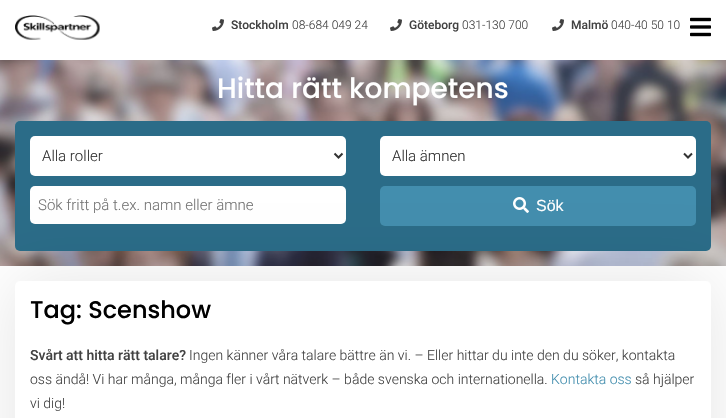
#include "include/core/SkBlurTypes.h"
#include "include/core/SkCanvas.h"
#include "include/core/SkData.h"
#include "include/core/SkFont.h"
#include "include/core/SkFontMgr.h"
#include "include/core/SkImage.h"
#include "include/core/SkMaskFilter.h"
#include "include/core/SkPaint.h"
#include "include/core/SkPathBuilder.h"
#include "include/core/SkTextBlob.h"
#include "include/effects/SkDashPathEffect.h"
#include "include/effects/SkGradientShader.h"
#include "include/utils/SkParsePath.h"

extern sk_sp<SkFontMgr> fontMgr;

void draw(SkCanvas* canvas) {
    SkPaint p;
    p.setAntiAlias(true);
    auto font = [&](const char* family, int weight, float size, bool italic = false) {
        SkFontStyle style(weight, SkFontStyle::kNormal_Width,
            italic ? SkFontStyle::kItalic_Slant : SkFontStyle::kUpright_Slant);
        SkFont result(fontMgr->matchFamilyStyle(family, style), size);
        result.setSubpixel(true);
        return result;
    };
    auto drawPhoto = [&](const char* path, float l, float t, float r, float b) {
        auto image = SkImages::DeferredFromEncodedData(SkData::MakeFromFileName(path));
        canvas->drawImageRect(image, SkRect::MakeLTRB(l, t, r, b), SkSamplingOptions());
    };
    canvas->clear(0xFFFFFFFF);
    drawPhoto("media/1.png", 15, 15, 100, 40);
    drawPhoto("media/2.png", 212, 19, 224, 31);
    auto font1 = font("Roboto", 500, 12);
    p.setColor(0xFF424242);
    canvas->drawString("Stockholm", 231, 29, font1, p);
    auto font2 = font("Roboto", 300, 12);
    canvas->drawString("08-684 049 24", 292, 29, font2, p);
    drawPhoto("media/2.png", 390, 19, 402, 31);
    canvas->drawString("Göteborg", 409, 29, font1, p);
    canvas->drawString("031-130 700", 462, 29, font2, p);
    drawPhoto("media/2.png", 552, 19, 564, 31);
    canvas->drawString("Malmö", 571, 29, font1, p);
    canvas->drawString("040-40 50 10", 611, 29, font2, p);
    drawPhoto("media/3.png", 690, 17, 711, 37);
    drawPhoto("media/4.png", 0, 60, 726, 266);
    auto font3 = font("Poppins", 500, 28);
    p.setColor(0xFFFFFFFF);
    canvas->drawString("Hitta rätt kompetens", 217, 98, font3, p);
    p.setColor(0xFF2B6C88);
    canvas->drawRoundRect(SkRect::MakeLTRB(15, 121, 711, 251), 5, 5, p);
    p.setColor(0xFFFFFFFF);
    canvas->drawRoundRect(SkRect::MakeLTRB(30, 136, 346, 176), 5, 5, p);
    p.setStyle(SkPaint::kStroke_Style);
    p.setStrokeWidth(2);
    p.setColor(0xFF333333);
    canvas->drawPath(SkPathBuilder().moveTo(334.5f, 153.5f).lineTo(338.5f, 157.5f).lineTo(342.5f, 153.5f).detach(), p);
    auto font4 = font("Roboto", 300, 15);
    p.setStyle(SkPaint::kFill_Style);
    canvas->drawString("Alla roller", 42, 161, font4, p);
    p.setColor(0xFFFFFFFF);
    canvas->drawRoundRect(SkRect::MakeLTRB(380, 136, 696, 176), 5, 5, p);
    p.setStyle(SkPaint::kStroke_Style);
    p.setColor(0xFF333333);
    canvas->drawPath(SkPathBuilder().moveTo(684, 153.5f).lineTo(688, 157.5f).lineTo(692, 153.5f).detach(), p);
    p.setStyle(SkPaint::kFill_Style);
    canvas->drawString("Alla ämnen", 392, 161, font4, p);
    p.setColor(0xFFFFFFFF);
    canvas->drawRoundRect(SkRect::MakeLTRB(30, 186, 346, 224), 5, 5, p);
    p.setColor(0xFF757575);
    canvas->drawString("Sök fritt på t.ex. namn eller ämne", 38, 210, font4, p);
    p.setColor(0xFF438EAE);
    canvas->drawRoundRect(SkRect::MakeLTRB(380, 186, 696, 226), 5, 5, p);
    drawPhoto("media/5.png", 513, 197, 529, 213);
    auto font5 = font("Liberation Sans", 400, 16);
    p.setColor(0xFFFFFFFF);
    canvas->drawString("Sök", 536, 211, font5, p);
    p.setColor(0x1A000000);
    p.setMaskFilter(SkMaskFilter::MakeBlur(kNormal_SkBlurStyle, 32.5f));
    canvas->drawRoundRect(SkRect::MakeLTRB(15, 281, 711, 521), 5, 5, p);
    p.setMaskFilter(nullptr);
    p.setColor(0xFFFFFFFF);
    canvas->drawRoundRect(SkRect::MakeLTRB(15, 281, 711, 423), 5, 5, p);
    auto font6 = font("Poppins", 500, 24);
    p.setColor(0xFF000000);
    canvas->drawString("Tag: Scenshow", 30, 318, font6, p);
    auto font7 = font("Roboto", 500, 14);
    p.setColor(0xFF424242);
    canvas->drawString("Svårt att hitta rätt talare?", 30, 360, font7, p);
    auto font8 = font("Roboto", 300, 14);
    canvas->drawString("Ingen känner våra talare bättre än vi. – Eller hittar du inte den du söker, kontakta", 189, 360, font8, p);
    canvas->drawString("oss ändå! Vi har många, många fler i vårt nätverk – både svenska och internationella.", 30, 384, font8, p);
    p.setColor(0xFF438EAE);
    canvas->drawString("Kontakta oss", 551, 384, font8, p);
    p.setColor(0xFF424242);
    canvas->drawString("så hjälper", 635, 384, font8, p);
    canvas->drawString("vi dig!", 30, 408, font8, p);
}
